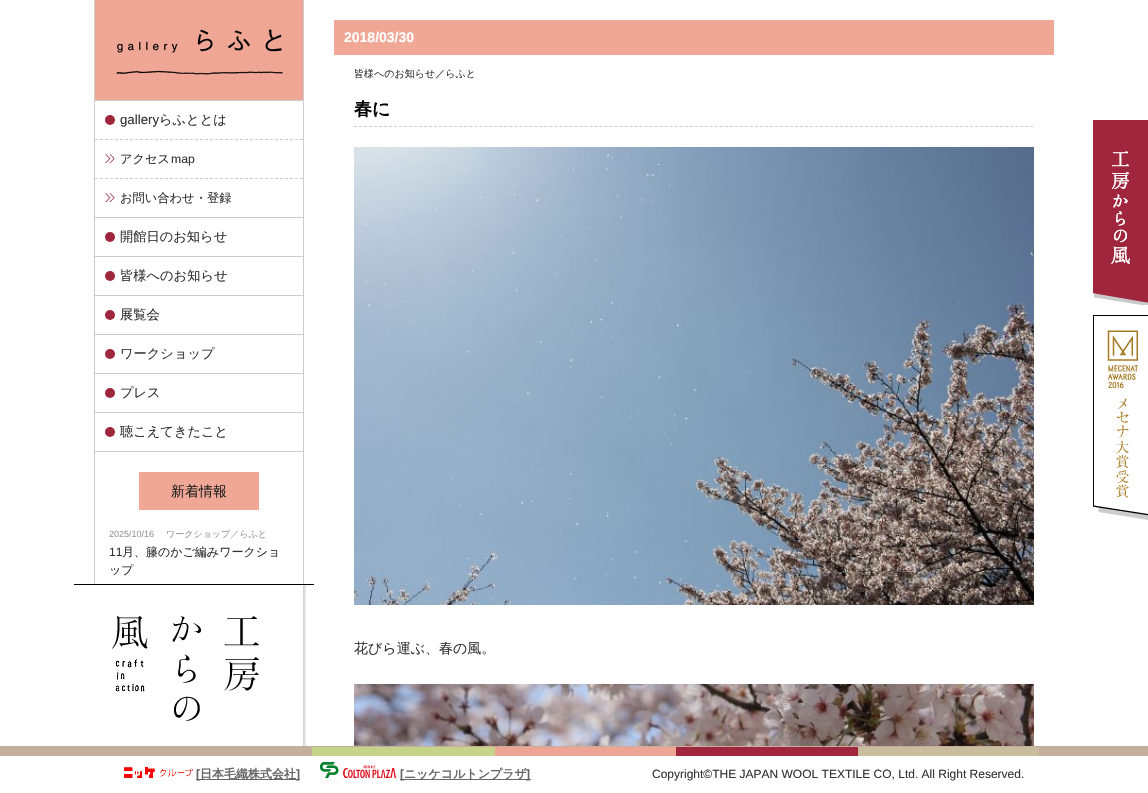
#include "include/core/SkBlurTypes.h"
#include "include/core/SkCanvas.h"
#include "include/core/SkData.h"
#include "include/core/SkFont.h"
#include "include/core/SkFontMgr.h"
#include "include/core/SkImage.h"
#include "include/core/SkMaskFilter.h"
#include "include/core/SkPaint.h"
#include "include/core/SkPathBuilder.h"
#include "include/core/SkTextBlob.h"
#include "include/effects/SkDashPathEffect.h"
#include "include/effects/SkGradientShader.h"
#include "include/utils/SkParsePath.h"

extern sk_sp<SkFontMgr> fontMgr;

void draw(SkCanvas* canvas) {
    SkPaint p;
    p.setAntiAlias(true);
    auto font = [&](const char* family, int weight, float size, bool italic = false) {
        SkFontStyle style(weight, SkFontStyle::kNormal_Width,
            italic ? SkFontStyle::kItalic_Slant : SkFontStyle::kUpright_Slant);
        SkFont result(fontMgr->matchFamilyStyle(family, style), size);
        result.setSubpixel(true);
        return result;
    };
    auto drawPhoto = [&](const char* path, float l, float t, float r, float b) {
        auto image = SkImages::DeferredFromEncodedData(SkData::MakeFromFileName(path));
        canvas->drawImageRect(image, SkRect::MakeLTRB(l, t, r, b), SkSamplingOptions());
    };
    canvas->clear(0xFFFFFFFF);
    {
        const struct { float l, t, r, b; SkColor color; } items[] = {
            {303, 0, 304, 584, 0xFFCCCCCC},
            {94, 0, 95, 584, 0xFFCCCCCC},
            {95, 100, 303, 101, 0xFFCCCCCC},
        };
        for (auto [l, t, r, b, color] : items) {
            p.setColor(color);
            canvas->drawRect(SkRect::MakeLTRB(l, t, r, b), p);
        }
    }
    drawPhoto("media/1.png", 95, 0, 303, 100);
    canvas->drawRect(SkRect::MakeLTRB(95, 217, 303, 218), p);
    p.setColor(0xFF9F263C);
    canvas->drawCircle(110, 120, 5, p);
    auto font1 = font("Liberation Sans", 400, 13.25f);
    p.setColor(0xFF333333);
    canvas->drawString("gallery", 120, 124, font1, p);
    auto font2 = font("WenQuanYi Zen Hei", 500, 13.25f);
    canvas->drawString("らふととは", 159, 124, font2, p);
    p.setStyle(SkPaint::kStroke_Style);
    p.setStrokeWidth(1);
    p.setColor(0xFFCCCCCC);
    p.setPathEffect(SkDashPathEffect::Make({{3, 2}}, 0));
    canvas->drawPath(SkPathBuilder().moveTo(95, 139.5f).lineTo(303, 139.5f).detach(), p);
    p.setPathEffect(nullptr);
    p.setPathEffect(SkDashPathEffect::Make({{3, 2}}, 0));
    canvas->drawPath(SkPathBuilder().moveTo(95, 178.5f).lineTo(303, 178.5f).detach(), p);
    p.setPathEffect(nullptr);
    drawPhoto("media/2.png", 105, 154, 115, 164);
    auto font3 = font("WenQuanYi Zen Hei", 500, 12.25f);
    p.setStyle(SkPaint::kFill_Style);
    p.setColor(0xFF333333);
    canvas->drawString("アクセス", 120, 163, font3, p);
    auto font4 = font("Liberation Sans", 400, 12.25f);
    canvas->drawString("map", 171, 163, font4, p);
    drawPhoto("media/2.png", 105, 193, 115, 203);
    canvas->drawString("お問い合わせ・登録", 120, 202, font3, p);
    p.setColor(0xFFCCCCCC);
    canvas->drawRect(SkRect::MakeLTRB(95, 256, 303, 257), p);
    p.setColor(0xFF9F263C);
    canvas->drawCircle(110, 237, 5, p);
    p.setColor(0xFF333333);
    canvas->drawString("開館日のお知らせ", 120, 241, font2, p);
    p.setColor(0xFFCCCCCC);
    canvas->drawRect(SkRect::MakeLTRB(95, 295, 303, 296), p);
    p.setColor(0xFF9F263C);
    canvas->drawCircle(110, 276, 5, p);
    p.setColor(0xFF333333);
    canvas->drawString("皆様へのお知らせ", 120, 280, font2, p);
    p.setColor(0xFFCCCCCC);
    canvas->drawRect(SkRect::MakeLTRB(95, 334, 303, 335), p);
    p.setColor(0xFF9F263C);
    canvas->drawCircle(110, 315, 5, p);
    p.setColor(0xFF333333);
    canvas->drawString("展覧会", 120, 319, font2, p);
    p.setColor(0xFFCCCCCC);
    canvas->drawRect(SkRect::MakeLTRB(95, 373, 303, 374), p);
    p.setColor(0xFF9F263C);
    canvas->drawCircle(110, 354, 5, p);
    p.setColor(0xFF333333);
    canvas->drawString("ワークショップ", 120, 358, font2, p);
    p.setColor(0xFFCCCCCC);
    canvas->drawRect(SkRect::MakeLTRB(95, 412, 303, 413), p);
    p.setColor(0xFF9F263C);
    canvas->drawCircle(110, 393, 5, p);
    p.setColor(0xFF333333);
    canvas->drawString("プレス", 120, 397, font2, p);
    p.setColor(0xFFCCCCCC);
    canvas->drawRect(SkRect::MakeLTRB(95, 451, 303, 452), p);
    p.setColor(0xFF9F263C);
    canvas->drawCircle(110, 432, 5, p);
    p.setColor(0xFF333333);
    canvas->drawString("聴こえてきたこと", 120, 436, font2, p);
    p.setColor(0xFFF0A795);
    canvas->drawRect(SkRect::MakeLTRB(139, 472, 259, 510), p);
    auto font5 = font("WenQuanYi Zen Hei", 500, 14);
    p.setColor(0xFF222222);
    canvas->drawString("新着情報", 171, 496, font5, p);
    auto font6 = font("Liberation Sans", 400, 9);
    p.setColor(0xFF999999);
    canvas->drawString("2025/10/16", 109, 537, font6, p);
    auto font7 = font("WenQuanYi Zen Hei", 500, 9);
    canvas->drawString("ワークショップ／らふと", 166, 537, font7, p);
    auto font8 = font("Liberation Sans", 400, 12);
    p.setColor(0xFF333333);
    canvas->drawString("11", 109, 556, font8, p);
    auto font9 = font("WenQuanYi Zen Hei", 500, 12);
    canvas->drawString("月、籐のかご編みワークショ", 122, 556, font9, p);
    canvas->drawString("ップ", 109, 574, font9, p);
    p.setColor(0xFFF0A795);
    canvas->drawRect(SkRect::MakeLTRB(334, 20, 1054, 55), p);
    auto font10 = font("Liberation Sans", 700, 14);
    p.setColor(0xFFFFFFFF);
    canvas->drawString("2018/03/30", 344, 42, font10, p);
    auto font11 = font("WenQuanYi Zen Hei", 500, 10);
    p.setColor(0xFF333333);
    canvas->drawString("皆様へのお知らせ／らふと", 354, 77, font11, p);
    p.setStyle(SkPaint::kStroke_Style);
    p.setColor(0xFFCCCCCC);
    p.setPathEffect(SkDashPathEffect::Make({{3, 2.01f}}, 0));
    canvas->drawPath(SkPathBuilder().moveTo(354, 126.5f).lineTo(1034, 126.5f).detach(), p);
    p.setPathEffect(nullptr);
    auto font12 = font("WenQuanYi Zen Hei", 700, 18);
    p.setStyle(SkPaint::kFill_Style);
    p.setColor(0xFF000000);
    canvas->drawString("春に", 354, 115, font12, p);
    drawPhoto("media/3.png", 354, 147, 1034, 605);
    p.setColor(0xFF333333);
    canvas->drawString("花びら運ぶ、春の風。", 354, 653, font5, p);
    drawPhoto("media/4.png", 354, 684, 1034, 746);
    drawPhoto("media/5.png", 0, 746, 1148, 793);
    drawPhoto("media/6.png", 94, 585, 307, 746);
    p.setColor(0xFF000000);
    canvas->drawRect(SkRect::MakeLTRB(74, 584, 314, 585), p);
    drawPhoto("media/7.png", 112, 616, 259, 721);
    {
        const struct { float l, t, r, b; SkColor color; } items[] = {
            {858, 747, 1039, 756, 0xFFC8BD9D},
            {676, 747, 858, 756, 0xFF9F263C},
            {495, 747, 676, 756, 0xFFEEA596},
            {312, 747, 495, 756, 0xFFC6D489},
        };
        for (auto [l, t, r, b, color] : items) {
            p.setColor(color);
            canvas->drawRect(SkRect::MakeLTRB(l, t, r, b), p);
        }
    }
    drawPhoto("media/8.png", 124, 767, 193, 778);
    p.setColor(0xFF666666);
    canvas->drawRect(SkRect::MakeLTRB(196, 779, 300, 780), p);
    auto font13 = font("Liberation Sans", 700, 12);
    canvas->drawString("[", 196, 778, font13, p);
    auto font14 = font("WenQuanYi Zen Hei", 700, 12);
    canvas->drawString("日本毛織株式会社", 200, 778, font14, p);
    canvas->drawString("]", 296, 778, font13, p);
    drawPhoto("media/9.png", 320, 762, 396, 778);
    canvas->drawRect(SkRect::MakeLTRB(400, 779, 531, 780), p);
    canvas->drawString("[", 400, 778, font13, p);
    canvas->drawString("ニッケコルトンプラザ", 404, 778, font14, p);
    canvas->drawString("]", 526, 778, font13, p);
    p.setColor(0xFF333333);
    canvas->drawString("Copyright©THE JAPAN WOOL TEXTILE CO, Ltd. All Right Reserved.", 652, 778, font8, p);
    drawPhoto("media/10.png", 1093, 120, 1148, 305);
    drawPhoto("media/11.png", 1093, 315, 1148, 520);
}
